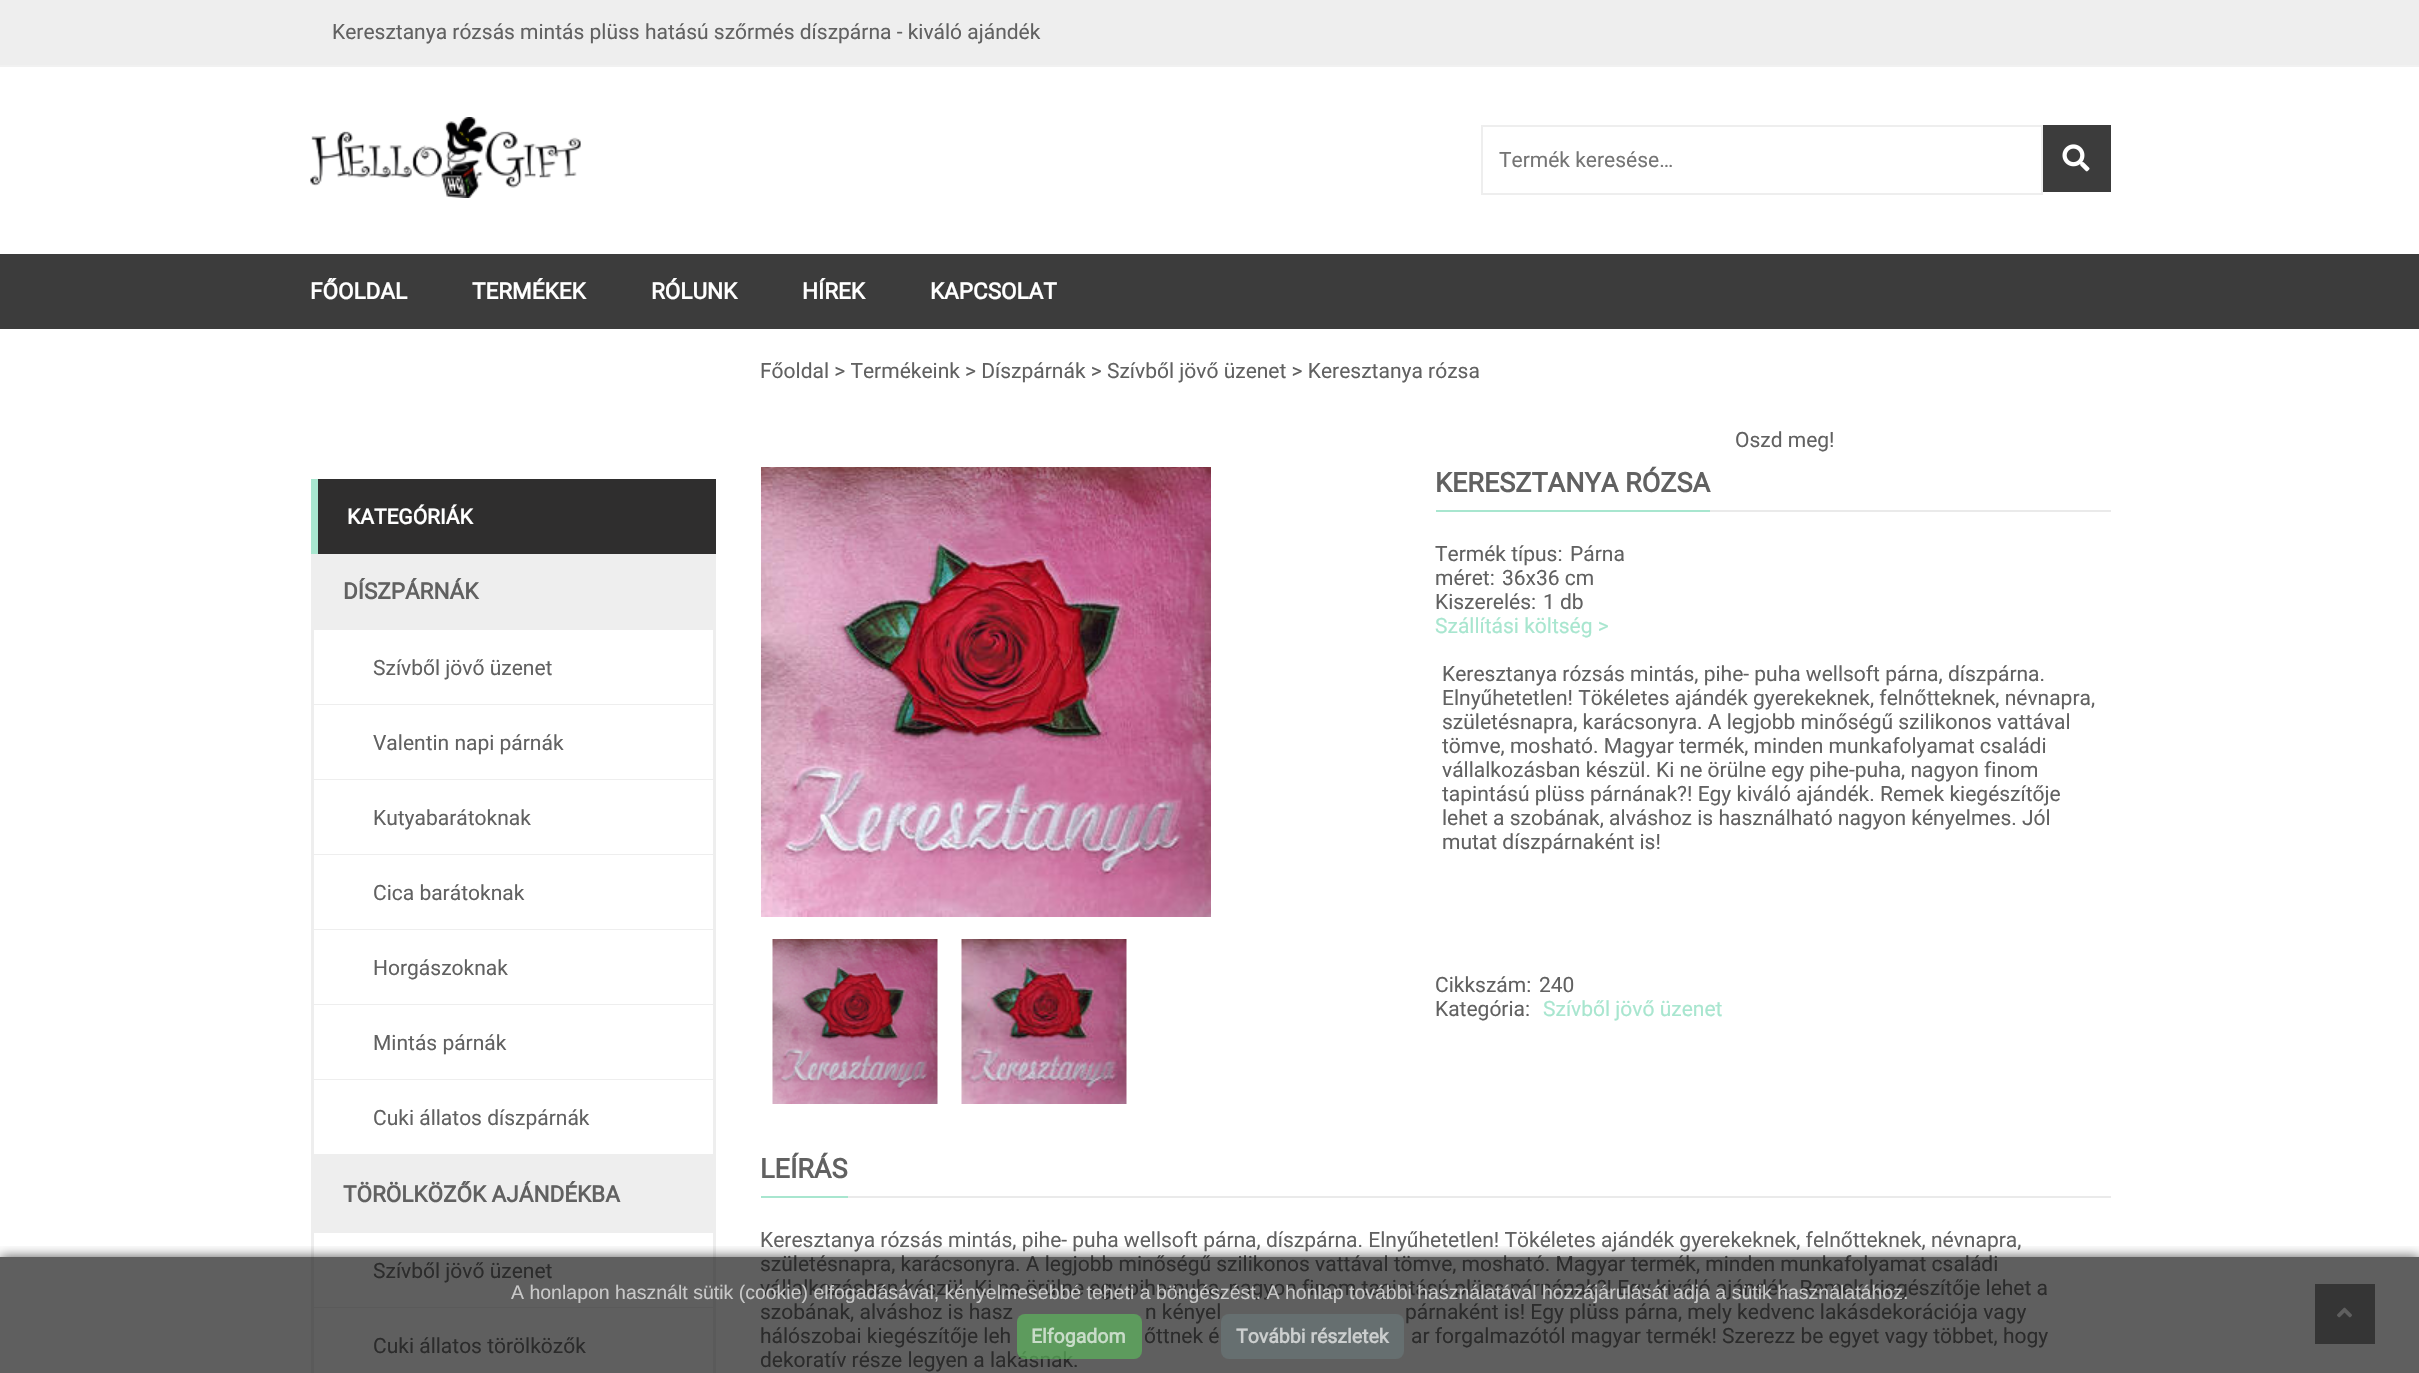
#include "include/core/SkBlurTypes.h"
#include "include/core/SkCanvas.h"
#include "include/core/SkData.h"
#include "include/core/SkFont.h"
#include "include/core/SkFontMgr.h"
#include "include/core/SkImage.h"
#include "include/core/SkMaskFilter.h"
#include "include/core/SkPaint.h"
#include "include/core/SkPathBuilder.h"
#include "include/core/SkTextBlob.h"
#include "include/effects/SkDashPathEffect.h"
#include "include/effects/SkGradientShader.h"
#include "include/utils/SkParsePath.h"

extern sk_sp<SkFontMgr> fontMgr;

void draw(SkCanvas* canvas) {
    SkPaint p;
    p.setAntiAlias(true);
    auto font = [&](const char* family, int weight, float size, bool italic = false) {
        SkFontStyle style(weight, SkFontStyle::kNormal_Width,
            italic ? SkFontStyle::kItalic_Slant : SkFontStyle::kUpright_Slant);
        SkFont result(fontMgr->matchFamilyStyle(family, style), size);
        result.setSubpixel(true);
        return result;
    };
    auto drawPhoto = [&](const char* path, float l, float t, float r, float b) {
        auto image = SkImages::DeferredFromEncodedData(SkData::MakeFromFileName(path));
        canvas->drawImageRect(image, SkRect::MakeLTRB(l, t, r, b), SkSamplingOptions());
    };
    canvas->clear(0xFFFFFFFF);
    p.setColor(0xFFEEEEEE);
    canvas->drawRect(SkRect::MakeLTRB(0, 0, 2419, 65), p);
    p.setColor(0xFFF1F1F1);
    canvas->drawRect(SkRect::MakeLTRB(0, 65, 2419, 67), p);
    auto font1 = font("Roboto", 400, 21);
    p.setColor(0xFF616161);
    canvas->drawString("Keresztanya rózsás mintás plüss hatású szőrmés díszpárna - kiváló ajándék", 332, 39, font1, p);
    drawPhoto("media/1.png", 310, 117, 581, 198);
    p.setStyle(SkPaint::kStroke_Style);
    p.setStrokeWidth(2);
    p.setColor(0xFFEEEEEE);
    canvas->drawRect(SkRect::MakeLTRB(1482, 126, 2042, 194), p);
    p.setStyle(SkPaint::kFill_Style);
    p.setColor(0xFF757575);
    canvas->drawString("Termék keresése…", 1499, 167, font1, p);
    p.setColor(0xFF3C3C3C);
    canvas->drawRect(SkRect::MakeLTRB(2043, 125, 2111, 192), p);
    drawPhoto("media/2.png", 2062, 144, 2090, 172);
    canvas->drawRect(SkRect::MakeLTRB(0, 254, 2419, 329), p);
    auto font2 = font("Roboto", 700, 22.5f);
    p.setColor(0xFFFFFFFF);
    {
        const struct { const char* s; float x, y; } items[] = {
            {"FŐOLDAL", 310, 299},
            {"TERMÉKEK", 472, 299},
            {"RÓLUNK", 651, 299},
            {"HÍREK", 802, 299},
            {"KAPCSOLAT", 930, 299},
        };
        for (auto [s, x, y] : items) {
            canvas->drawString(s, x, y, font2, p);
        }
    }
    p.setColor(0xFF2F2E2E);
    canvas->drawRect(SkRect::MakeLTRB(318, 479, 716, 554), p);
    p.setColor(0xFFA8E6CF);
    canvas->drawRect(SkRect::MakeLTRB(311, 479, 318, 554), p);
    auto font3 = font("Roboto", 700, 21);
    p.setColor(0xFFFFFFFF);
    canvas->drawString("KATEGÓRIÁK", 347, 524, font3, p);
    {
        const struct { float l, t, r, b; SkColor color; } items[] = {
            {714, 554, 716, 1373, 0xFFEEEEEE},
            {311, 1155, 716, 1157, 0xFFEEEEEE},
            {311, 554, 313, 1157, 0xFFEEEEEE},
            {313, 554, 714, 629, 0xFFEEEEEE},
            {312, 629, 714, 630, 0xFFEEEEEE},
        };
        for (auto [l, t, r, b, color] : items) {
            p.setColor(color);
            canvas->drawRect(SkRect::MakeLTRB(l, t, r, b), p);
        }
    }
    p.setColor(0xFF616161);
    canvas->drawString("DÍSZPÁRNÁK", 343, 599, font2, p);
    {
        const struct { float l, t, r, b; SkColor color; } items[] = {
            {313, 630, 314, 1155, 0xFFEEEEEE},
            {713, 630, 714, 1155, 0xFFEEEEEE},
            {314, 704, 714, 705, 0xFFEEEEEE},
        };
        for (auto [l, t, r, b, color] : items) {
            p.setColor(color);
            canvas->drawRect(SkRect::MakeLTRB(l, t, r, b), p);
        }
    }
    p.setColor(0xFF616161);
    canvas->drawString("Szívből jövő üzenet", 373, 675, font1, p);
    p.setColor(0xFFEEEEEE);
    canvas->drawRect(SkRect::MakeLTRB(314, 779, 714, 780), p);
    p.setColor(0xFF616161);
    canvas->drawString("Valentin napi párnák", 373, 750, font1, p);
    p.setColor(0xFFEEEEEE);
    canvas->drawRect(SkRect::MakeLTRB(314, 854, 714, 855), p);
    p.setColor(0xFF616161);
    canvas->drawString("Kutyabarátoknak", 373, 825, font1, p);
    p.setColor(0xFFEEEEEE);
    canvas->drawRect(SkRect::MakeLTRB(314, 929, 714, 930), p);
    p.setColor(0xFF616161);
    canvas->drawString("Cica barátoknak", 373, 900, font1, p);
    p.setColor(0xFFEEEEEE);
    canvas->drawRect(SkRect::MakeLTRB(314, 1004, 714, 1005), p);
    p.setColor(0xFF616161);
    canvas->drawString("Horgászoknak", 373, 975, font1, p);
    p.setColor(0xFFEEEEEE);
    canvas->drawRect(SkRect::MakeLTRB(314, 1079, 714, 1080), p);
    p.setColor(0xFF616161);
    canvas->drawString("Mintás párnák", 373, 1050, font1, p);
    p.setColor(0xFFEEEEEE);
    canvas->drawRect(SkRect::MakeLTRB(314, 1154, 714, 1155), p);
    p.setColor(0xFF616161);
    canvas->drawString("Cuki állatos díszpárnák", 373, 1125, font1, p);
    p.setColor(0xFFEEEEEE);
    canvas->drawRect(SkRect::MakeLTRB(311, 1157, 312, 1373), p);
    canvas->drawRect(SkRect::MakeLTRB(312, 1157, 714, 1233), p);
    p.setColor(0xFF616161);
    canvas->drawString("TÖRÖLKÖZŐK AJÁNDÉKBA", 343, 1202, font2, p);
    {
        const struct { float l, t, r, b; SkColor color; } items[] = {
            {312, 1233, 314, 1373, 0xFFEEEEEE},
            {713, 1233, 714, 1373, 0xFFEEEEEE},
            {314, 1307, 714, 1308, 0xFFEEEEEE},
        };
        for (auto [l, t, r, b, color] : items) {
            p.setColor(color);
            canvas->drawRect(SkRect::MakeLTRB(l, t, r, b), p);
        }
    }
    p.setColor(0xFF616161);
    {
        const struct { const char* s; float x, y; } items[] = {
            {"Szívből jövő üzenet", 373, 1278},
            {"Cuki állatos törölközők", 373, 1353},
            {"Főoldal > Termékeink > Díszpárnák > Szívből jövő üzenet > Keresztanya rózsa", 760, 378},
            {"Oszd meg!", 1735, 447},
        };
        for (auto [s, x, y] : items) {
            canvas->drawString(s, x, y, font1, p);
        }
    }
    drawPhoto("media/3.png", 761, 467, 1211, 917);
    drawPhoto("media/4.png", 772, 939, 938, 1104);
    drawPhoto("media/5.png", 961, 939, 1127, 1104);
    p.setColor(0xFFEAEAEA);
    canvas->drawRect(SkRect::MakeLTRB(1710, 510, 2111, 512), p);
    p.setColor(0xFFA8E6CF);
    canvas->drawRect(SkRect::MakeLTRB(1436, 510, 1710, 512), p);
    auto font4 = font("Roboto", 700, 27);
    p.setColor(0xFF616161);
    canvas->drawString("KERESZTANYA RÓZSA", 1435, 492, font4, p);
    {
        const struct { const char* s; float x, y; } items[] = {
            {"Termék típus:", 1435, 561},
            {"Párna", 1570, 561},
            {"méret:", 1435, 585},
            {"36x36 cm", 1502, 585},
            {"Kiszerelés:", 1435, 609},
            {"1 db", 1543, 609},
        };
        for (auto [s, x, y] : items) {
            canvas->drawString(s, x, y, font1, p);
        }
    }
    p.setColor(0xFFA8E6CF);
    canvas->drawString("Szállítási költség >", 1435, 633, font1, p);
    p.setColor(0xFF616161);
    {
        const struct { const char* s; float x, y; } items[] = {
            {"Keresztanya rózsás mintás, pihe- puha wellsoft párna, díszpárna.", 1442, 681},
            {"Elnyűhetetlen! Tökéletes ajándék gyerekeknek, felnőtteknek, névnapra,", 1442, 705},
            {"születésnapra, karácsonyra. A legjobb minőségű szilikonos vattával", 1442, 729},
            {"tömve, mosható. Magyar termék, minden munkafolyamat családi", 1442, 753},
            {"vállalkozásban készül. Ki ne örülne egy pihe-puha, nagyon finom", 1442, 777},
            {"tapintású plüss párnának?! Egy kiváló ajándék. Remek kiegészítője", 1442, 801},
            {"lehet a szobának, alváshoz is használható nagyon kényelmes. Jól", 1442, 825},
            {"mutat díszpárnaként is!", 1442, 849},
            {"Cikkszám:", 1435, 992},
            {"240", 1539, 992},
            {"Kategória:", 1435, 1016},
        };
        for (auto [s, x, y] : items) {
            canvas->drawString(s, x, y, font1, p);
        }
    }
    p.setColor(0xFFA8E6CF);
    canvas->drawString("Szívből jövő üzenet", 1543, 1016, font1, p);
    p.setColor(0xFFEAEAEA);
    canvas->drawRect(SkRect::MakeLTRB(848, 1196, 2111, 1198), p);
    p.setColor(0xFFA8E6CF);
    canvas->drawRect(SkRect::MakeLTRB(761, 1196, 848, 1198), p);
    p.setColor(0xFF616161);
    canvas->drawString("LEÍRÁS", 760, 1178, font4, p);
    {
        const struct { const char* s; float x, y; } items[] = {
            {"Keresztanya rózsás mintás, pihe- puha wellsoft párna, díszpárna. Elnyűhetetlen! Tökéletes ajándék gyerekeknek, felnőtteknek, névnapra,", 760, 1247},
            {"születésnapra, karácsonyra. A legjobb minőségű szilikonos vattával tömve, mosható. Magyar termék, minden munkafolyamat családi", 760, 1271},
            {"vállalkozásban készül. Ki ne örülne egy pihe-puha, nagyon finom tapintású plüss párnának?! Egy kiváló ajándék. Remek kiegészítője lehet a", 760, 1295},
            {"szobának, alváshoz is hasz", 760, 1319},
            {"n kényel", 1145, 1319},
            {"párnaként is! Egy plüss párna, mely kedvenc lakásdekorációja vagy", 1405, 1319},
            {"hálószobai kiegészítője leh", 760, 1343},
            {"őttnek é", 1144, 1343},
            {"ar forgalmazótól magyar termék! Szerezz be egyet vagy többet, hogy", 1411, 1343},
            {"dekoratív része legyen a lakásnak.", 760, 1367},
        };
        for (auto [s, x, y] : items) {
            canvas->drawString(s, x, y, font1, p);
        }
    }
    p.setColor(0xFF808080);
    canvas->drawRect(SkRect::MakeLTRB(2315, 1284, 2375, 1344), p);
    drawPhoto("media/6.png", 2337, 1307, 2352, 1318);
    canvas->save();
    canvas->clipRect(SkRect::MakeLTRB(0, 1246, 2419, 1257));
    p.setColor(0xAB000000);
    p.setMaskFilter(SkMaskFilter::MakeBlur(kNormal_SkBlurStyle, 6));
    canvas->drawRect(SkRect::MakeLTRB(0, 1257, 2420, 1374), p);
    p.setMaskFilter(nullptr);
    canvas->restore();
    p.setColor(0xAB111111);
    canvas->drawRect(SkRect::MakeLTRB(0, 1257, 2419, 1373), p);
    auto font5 = font("Liberation Sans", 400, 19.5f);
    p.setColor(0xFFC8C8C8);
    canvas->drawString("A honlapon használt sütik (cookie) elfogadásával, kényelmesebbé teheti a böngészést. A honlap további használatával hozzájárulását adja a sütik használatához.", 511, 1299, font5, p);
    p.setColor(0xAB5BB75B);
    canvas->drawRoundRect(SkRect::MakeLTRB(1017, 1314, 1142, 1359), 8, 8, p);
    auto font6 = font("Roboto", 700, 19.5f);
    p.setColor(0xFFC8DCC8);
    canvas->drawString("Elfogadom", 1031, 1343, font6, p);
    p.setColor(0xAB697677);
    canvas->drawRoundRect(SkRect::MakeLTRB(1221, 1314, 1404, 1359), 8, 8, p);
    p.setColor(0xFFCBCECE);
    canvas->drawString("További részletek", 1236, 1343, font6, p);
}
